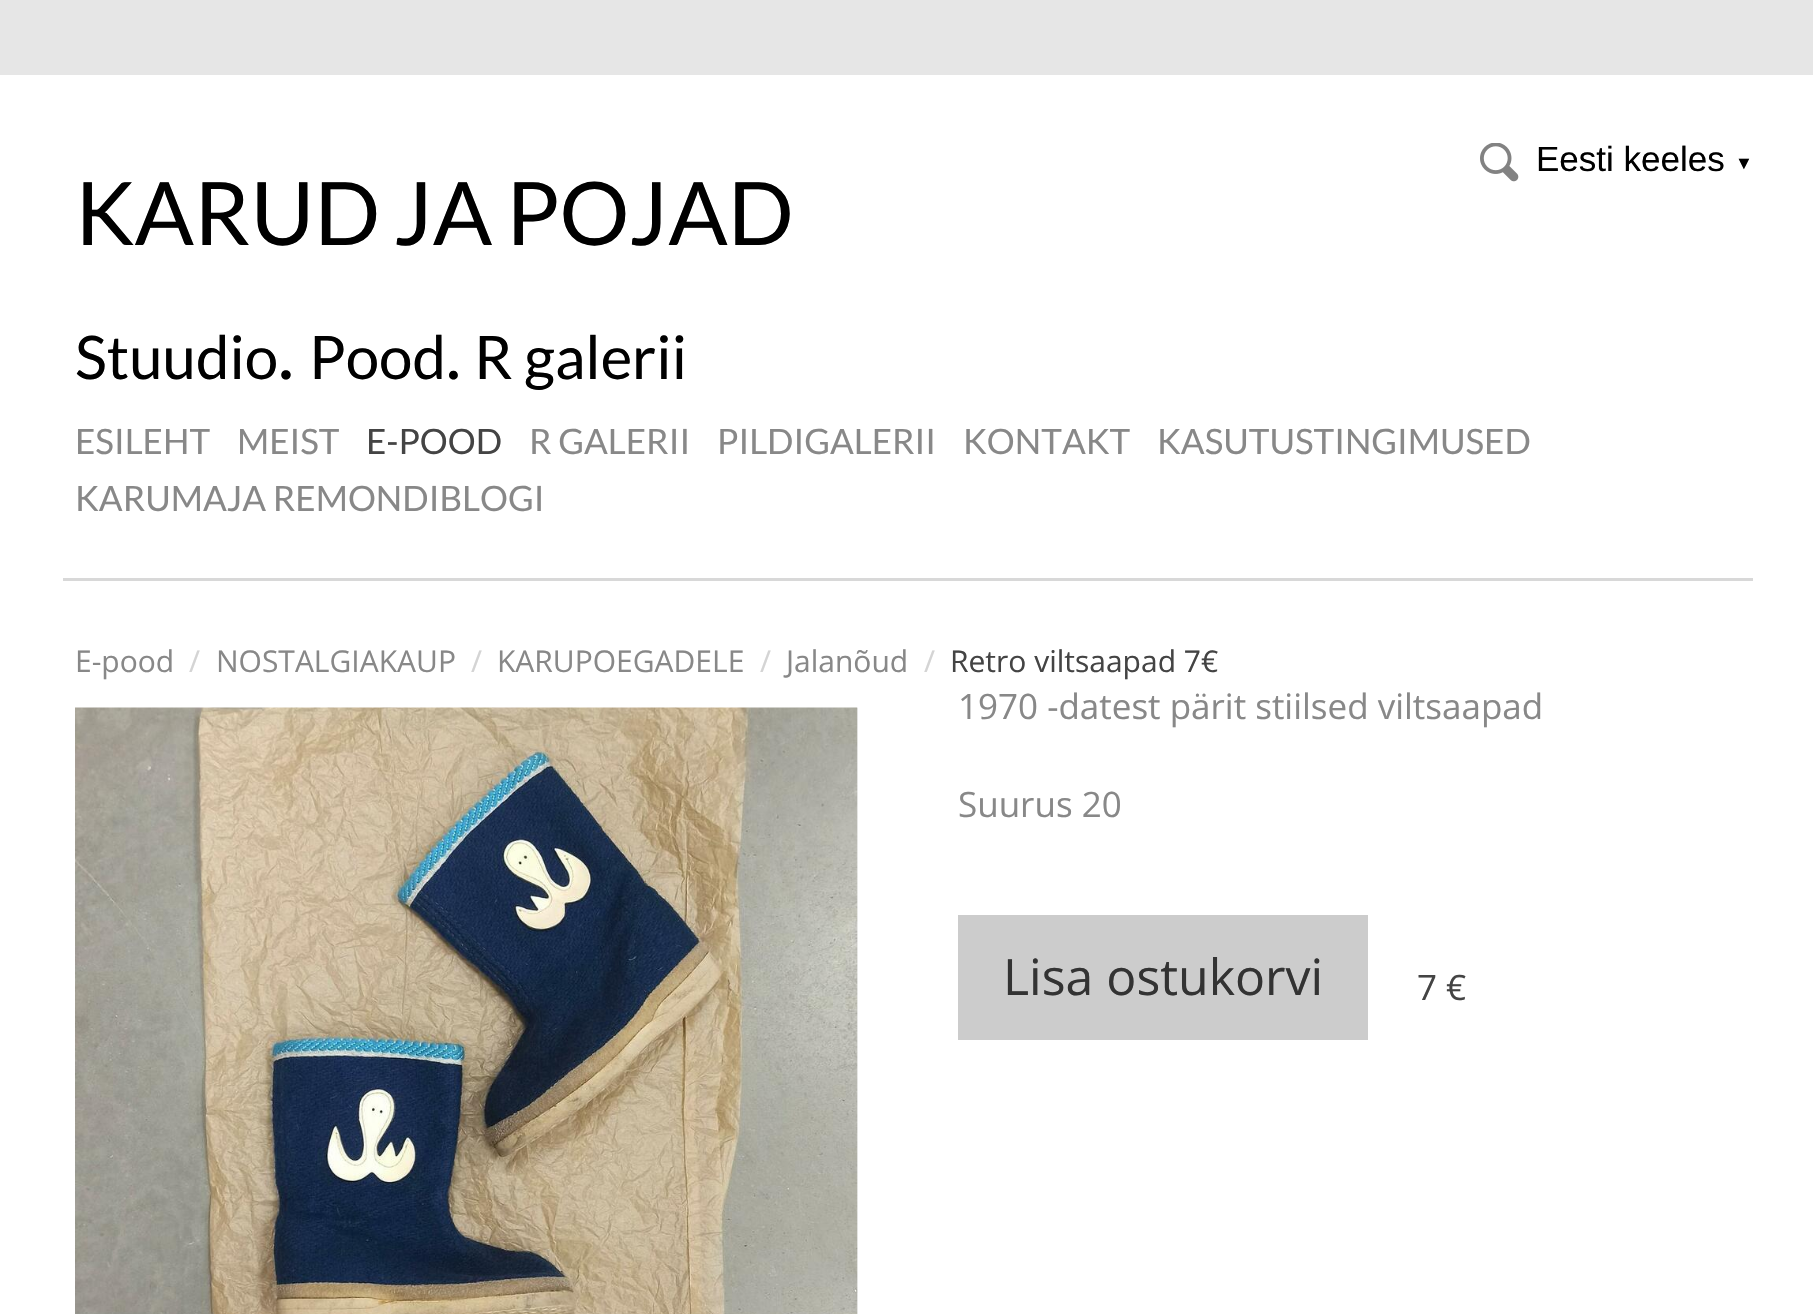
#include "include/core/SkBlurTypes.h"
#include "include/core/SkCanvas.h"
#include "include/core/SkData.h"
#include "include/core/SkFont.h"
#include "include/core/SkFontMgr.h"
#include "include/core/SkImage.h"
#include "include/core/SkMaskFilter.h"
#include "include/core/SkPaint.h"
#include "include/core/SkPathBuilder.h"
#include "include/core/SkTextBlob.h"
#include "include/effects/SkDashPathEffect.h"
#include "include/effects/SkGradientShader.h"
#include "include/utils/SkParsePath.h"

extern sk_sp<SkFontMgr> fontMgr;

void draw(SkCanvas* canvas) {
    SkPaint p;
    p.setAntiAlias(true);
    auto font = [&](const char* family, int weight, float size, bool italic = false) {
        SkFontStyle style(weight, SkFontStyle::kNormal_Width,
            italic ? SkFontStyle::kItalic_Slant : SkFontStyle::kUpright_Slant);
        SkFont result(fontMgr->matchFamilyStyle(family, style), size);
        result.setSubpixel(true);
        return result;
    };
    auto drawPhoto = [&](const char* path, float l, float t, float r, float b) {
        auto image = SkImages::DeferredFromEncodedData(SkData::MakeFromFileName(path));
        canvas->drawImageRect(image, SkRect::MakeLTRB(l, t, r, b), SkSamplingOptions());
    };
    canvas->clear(0xFFE6E6E6);
    p.setColor(0xFFFFFFFF);
    canvas->drawRect(SkRect::MakeLTRB(0, 75, 1813, 1314), p);
    p.setColor(0xFFD8D8D8);
    canvas->drawRect(SkRect::MakeLTRB(63, 578, 1753, 581), p);
    drawPhoto("media/1.png", 1480, 143, 1519, 182);
    auto font1 = font("Liberation Sans", 400, 35);
    p.setColor(0xFF000000);
    canvas->drawString("Eesti keeles", 1536, 171, font1, p);
    auto font2 = font("Liberation Sans", 400, 18);
    canvas->drawString("▼", 1735, 169, font2, p);
    auto font3 = font("Lato", 400, 87.5f);
    {
        const struct { const char* s; float x, y; } items[] = {
            {"KARUD", 75, 245},
            {"JA", 394, 245},
            {"POJAD", 506, 245},
        };
        for (auto [s, x, y] : items) {
            canvas->drawString(s, x, y, font3, p);
        }
    }
    auto font4 = font("Lato", 400, 60);
    canvas->drawString("Stuudio", 75, 379, font4, p);
    auto font5 = font("Lato", 400, 75);
    canvas->drawString(".", 278, 379, font5, p);
    canvas->drawString("Pood", 309, 379, font4, p);
    auto font6 = font("Lato", 400, 70);
    canvas->drawString(".", 446, 379, font6, p);
    canvas->drawString("R galerii", 474, 379, font4, p);
    auto font7 = font("Lato", 400, 35);
    p.setColor(0xFF888888);
    canvas->drawString("ESILEHT", 75, 454, font7, p);
    canvas->drawString("MEIST", 237, 454, font7, p);
    p.setColor(0xFF444444);
    canvas->drawString("E-POOD", 366, 454, font7, p);
    p.setColor(0xFF888888);
    {
        const struct { const char* s; float x, y; } items[] = {
            {"R GALERII", 529, 454},
            {"PILDIGALERII", 717, 454},
            {"KONTAKT", 963, 454},
            {"KASUTUSTINGIMUSED", 1157, 454},
            {"KARUMAJA REMONDIBLOGI", 75, 511},
        };
        for (auto [s, x, y] : items) {
            canvas->drawString(s, x, y, font7, p);
        }
    }
    auto font8 = font("Open Sans", 400, 30);
    canvas->drawString("E-pood", 75, 672, font8, p);
    p.setColor(0xFFD4D4D4);
    canvas->drawString("/", 189, 672, font8, p);
    p.setColor(0xFF888888);
    canvas->drawString("NOSTALGIAKAUP", 216, 672, font8, p);
    p.setColor(0xFFD4D4D4);
    canvas->drawString("/", 471, 672, font8, p);
    p.setColor(0xFF888888);
    canvas->drawString("KARUPOEGADELE", 497, 672, font8, p);
    p.setColor(0xFFD4D4D4);
    canvas->drawString("/", 760, 672, font8, p);
    p.setColor(0xFF888888);
    canvas->drawString("Jalanõud", 786, 672, font8, p);
    p.setColor(0xFFD4D4D4);
    canvas->drawString("/", 924, 672, font8, p);
    p.setColor(0xFF444444);
    canvas->drawString("Retro viltsaapad 7€", 950, 672, font8, p);
    p.setColor(0xFFF3F3F3);
    canvas->drawRect(SkRect::MakeLTRB(857, 708, 858, 1314), p);
    drawPhoto("media/2.png", 75, 707, 858, 1314);
    auto font9 = font("Open Sans", 400, 35);
    p.setColor(0xFF888888);
    canvas->drawString("1970 -datest pärit stiilsed viltsaapad", 958, 719, font9, p);
    canvas->drawString("Suurus 20", 958, 817, font9, p);
    p.setColor(0xFFCCCCCC);
    canvas->drawRect(SkRect::MakeLTRB(958, 915, 1368, 1040), p);
    auto font10 = font("Open Sans", 400, 50);
    p.setColor(0xFF333333);
    canvas->drawString("Lisa ostukorvi", 1003, 995, font10, p);
    p.setColor(0xFF444444);
    canvas->drawString("7 €", 1417, 1000, font9, p);
}
